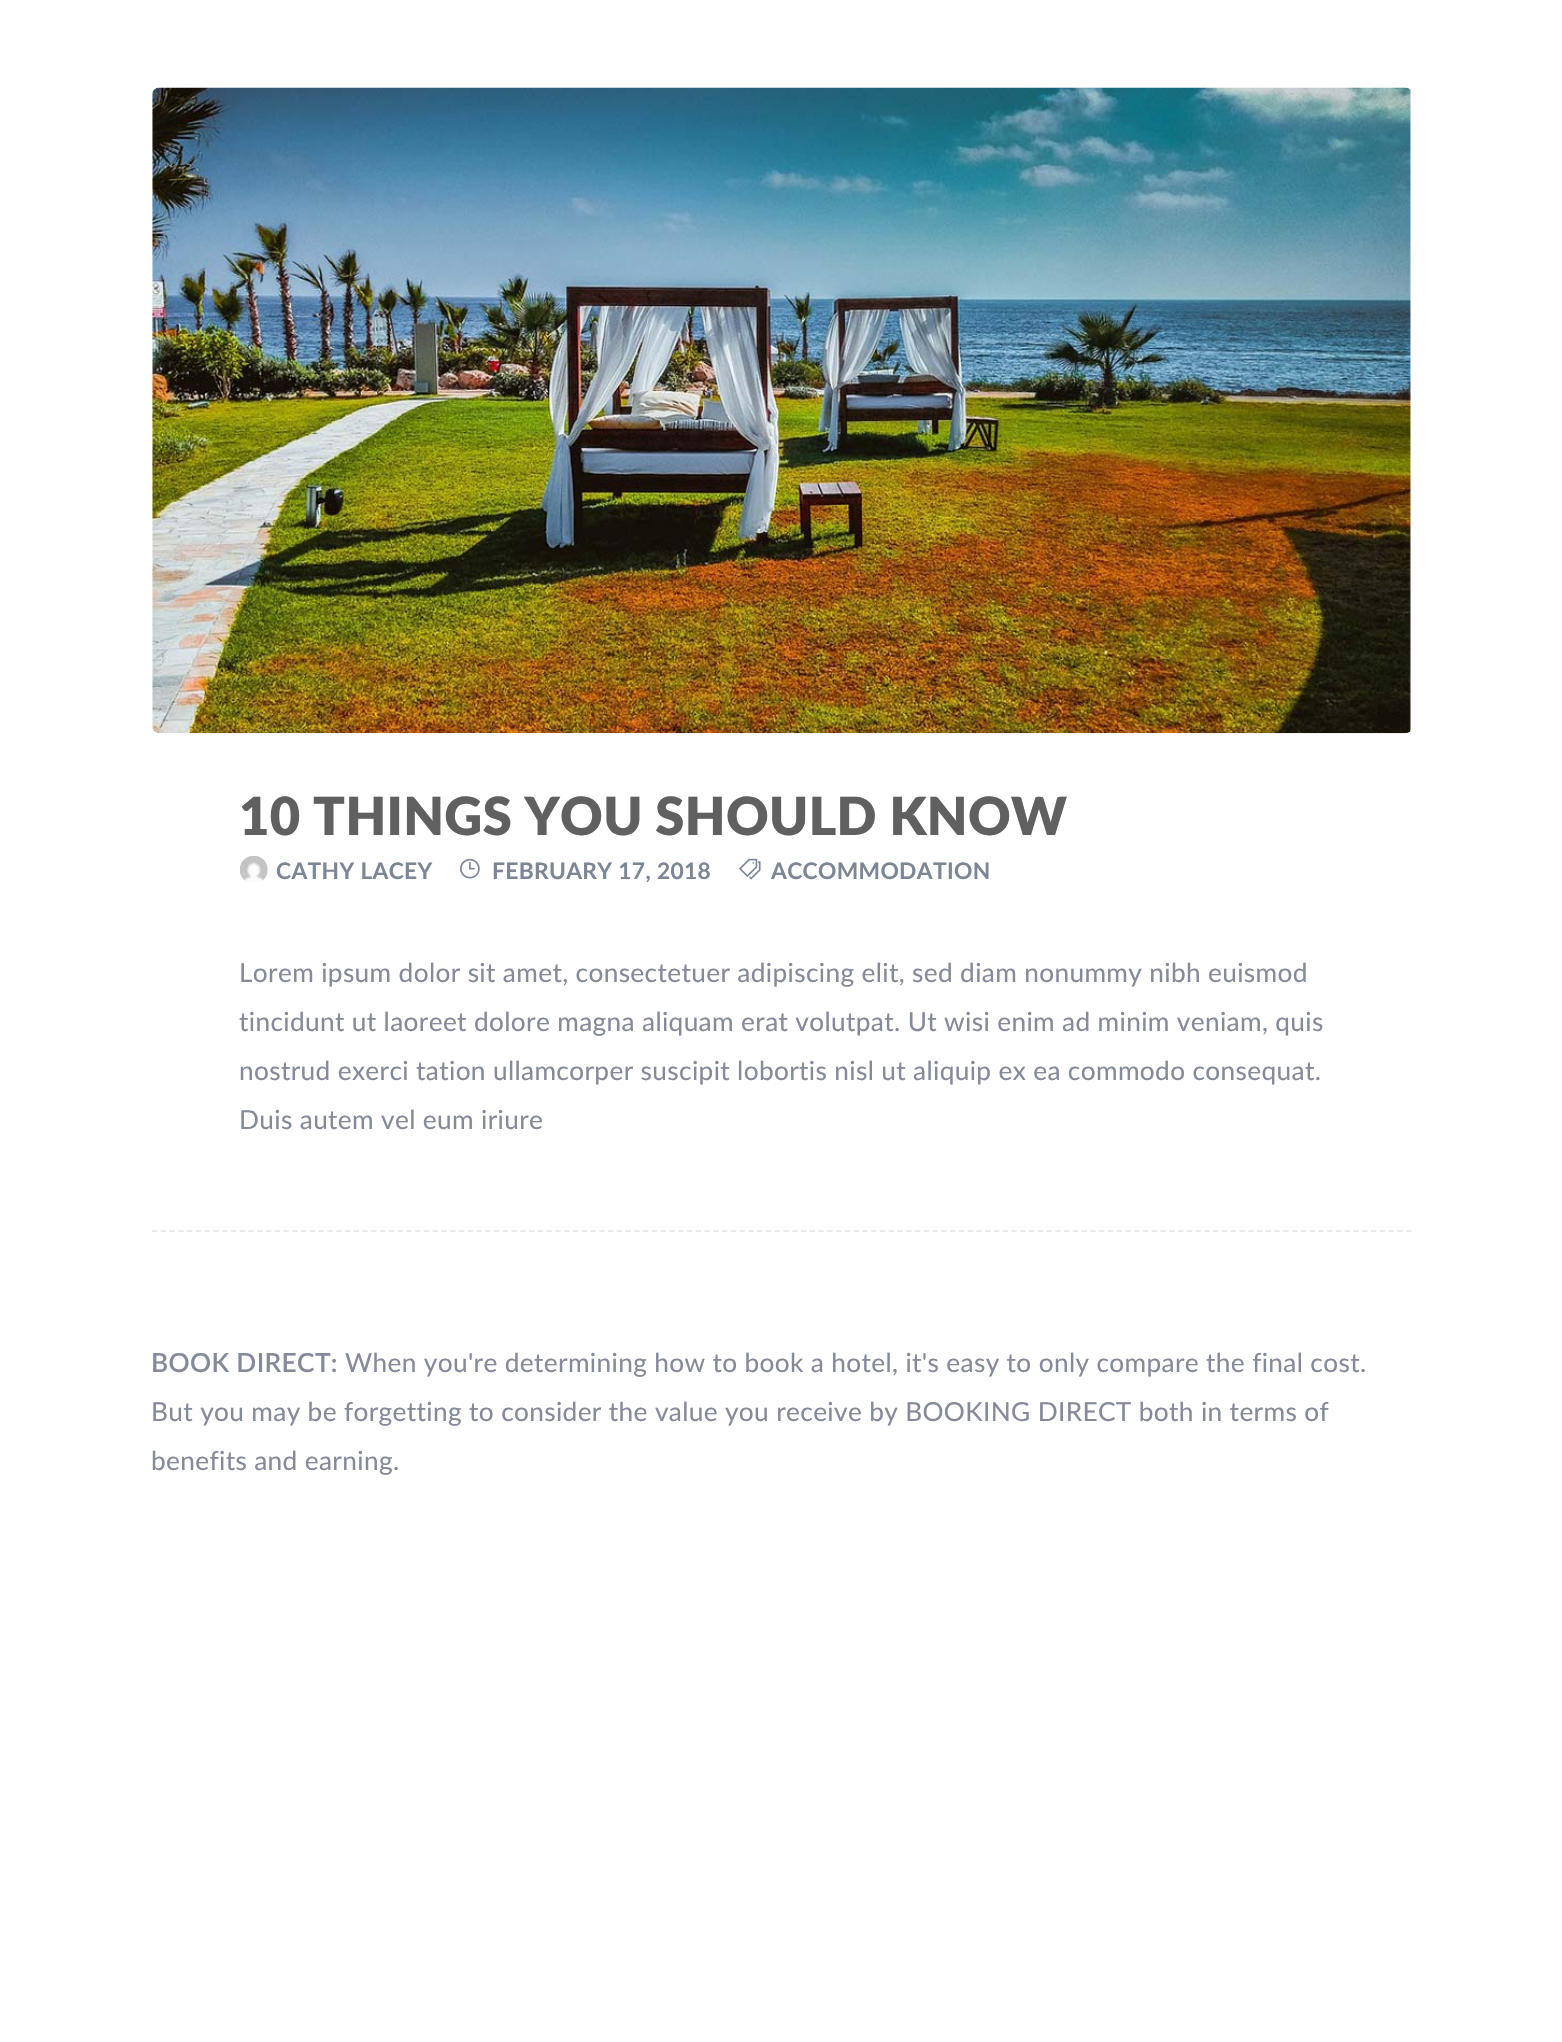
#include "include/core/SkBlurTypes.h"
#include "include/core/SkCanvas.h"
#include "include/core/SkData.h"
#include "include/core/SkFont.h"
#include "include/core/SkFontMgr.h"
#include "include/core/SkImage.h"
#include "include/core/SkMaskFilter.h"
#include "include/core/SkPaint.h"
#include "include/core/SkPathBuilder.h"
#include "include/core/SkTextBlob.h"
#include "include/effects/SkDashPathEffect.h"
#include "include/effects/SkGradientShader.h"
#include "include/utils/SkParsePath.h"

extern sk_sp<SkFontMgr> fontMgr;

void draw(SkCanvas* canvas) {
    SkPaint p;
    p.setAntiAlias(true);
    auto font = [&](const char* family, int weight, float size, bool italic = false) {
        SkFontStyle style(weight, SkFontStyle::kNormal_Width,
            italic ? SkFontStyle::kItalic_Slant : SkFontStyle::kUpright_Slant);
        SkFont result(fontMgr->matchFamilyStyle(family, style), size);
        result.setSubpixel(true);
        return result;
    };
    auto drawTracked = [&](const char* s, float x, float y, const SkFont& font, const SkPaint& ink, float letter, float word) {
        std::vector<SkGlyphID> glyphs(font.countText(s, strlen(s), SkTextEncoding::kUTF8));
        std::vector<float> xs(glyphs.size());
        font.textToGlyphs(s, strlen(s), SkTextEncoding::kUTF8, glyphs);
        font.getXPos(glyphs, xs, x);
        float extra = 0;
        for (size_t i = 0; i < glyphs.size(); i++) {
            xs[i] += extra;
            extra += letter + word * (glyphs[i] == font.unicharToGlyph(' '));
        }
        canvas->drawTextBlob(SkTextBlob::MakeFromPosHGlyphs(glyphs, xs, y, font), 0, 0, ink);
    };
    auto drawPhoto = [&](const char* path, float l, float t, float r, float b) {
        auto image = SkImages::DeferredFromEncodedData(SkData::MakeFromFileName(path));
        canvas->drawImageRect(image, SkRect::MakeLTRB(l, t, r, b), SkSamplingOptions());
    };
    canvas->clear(0xFFFFFFFF);
    p.setStyle(SkPaint::kStroke_Style);
    p.setStrokeWidth(1.8f);
    p.setColor(0xFFEAEAEA);
    p.setPathEffect(SkDashPathEffect::Make({{5.25f, 3.52f}}, 0));
    canvas->drawPath(SkPathBuilder().moveTo(152, 1231).lineTo(1412, 1231).detach(), p);
    p.setPathEffect(nullptr);
    drawPhoto("media/1.png", 152, 87, 1411, 734);
    auto font1 = font("Lato", 800, 52.5f);
    p.setStyle(SkPaint::kFill_Style);
    p.setColor(0xFF606060);
    drawTracked("10 THINGS YOU SHOULD KNOW", 239, 835, font1, p, 0.35f, 0);
    drawPhoto("media/2.png", 240, 856, 268, 883);
    auto font2 = font("Lato", 700, 22.75f);
    p.setColor(0xFF7D8693);
    drawTracked("CATHY LACEY", 276, 879, font2, p, 0.35f, 0);
    drawPhoto("media/3.png", 460, 858, 480, 879);
    drawTracked("FEBRUARY 17, 2018", 492, 879, font2, p, 0.35f, 0);
    drawPhoto("media/4.png", 739, 858, 761, 880);
    drawTracked("ACCOMMODATION", 771, 879, font2, p, 0.35f, 0);
    auto font3 = font("Lato", 400, 26.25f);
    p.setColor(0xFF858A99);
    {
        const struct { const char* s; float x, y; } items[] = {
            {"Lorem ipsum dolor sit amet, consectetuer adipiscing elit, sed diam nonummy nibh euismod", 239, 982},
            {"tincidunt ut laoreet dolore magna aliquam erat volutpat. Ut wisi enim ad minim veniam, quis", 239, 1031},
            {"nostrud exerci tation ullamcorper suscipit lobortis nisl ut aliquip ex ea commodo consequat.", 239, 1080},
            {"Duis autem vel eum iriure", 239, 1129},
        };
        for (auto [s, x, y] : items) {
            drawTracked(s, x, y, font3, p, 0.35f, 0);
        }
    }
    auto font4 = font("Lato", 600, 26.25f);
    drawTracked("BOOK DIRECT:", 151, 1372, font4, p, 0.35f, 0);
    {
        const struct { const char* s; float x, y; } items[] = {
            {"When you're determining how to book a hotel, it's easy to only compare the final cost.", 345, 1372},
            {"But you may be forgetting to consider the value you receive by BOOKING DIRECT both in terms of", 151, 1421},
            {"benefits and earning.", 151, 1470},
        };
        for (auto [s, x, y] : items) {
            drawTracked(s, x, y, font3, p, 0.35f, 0);
        }
    }
}
